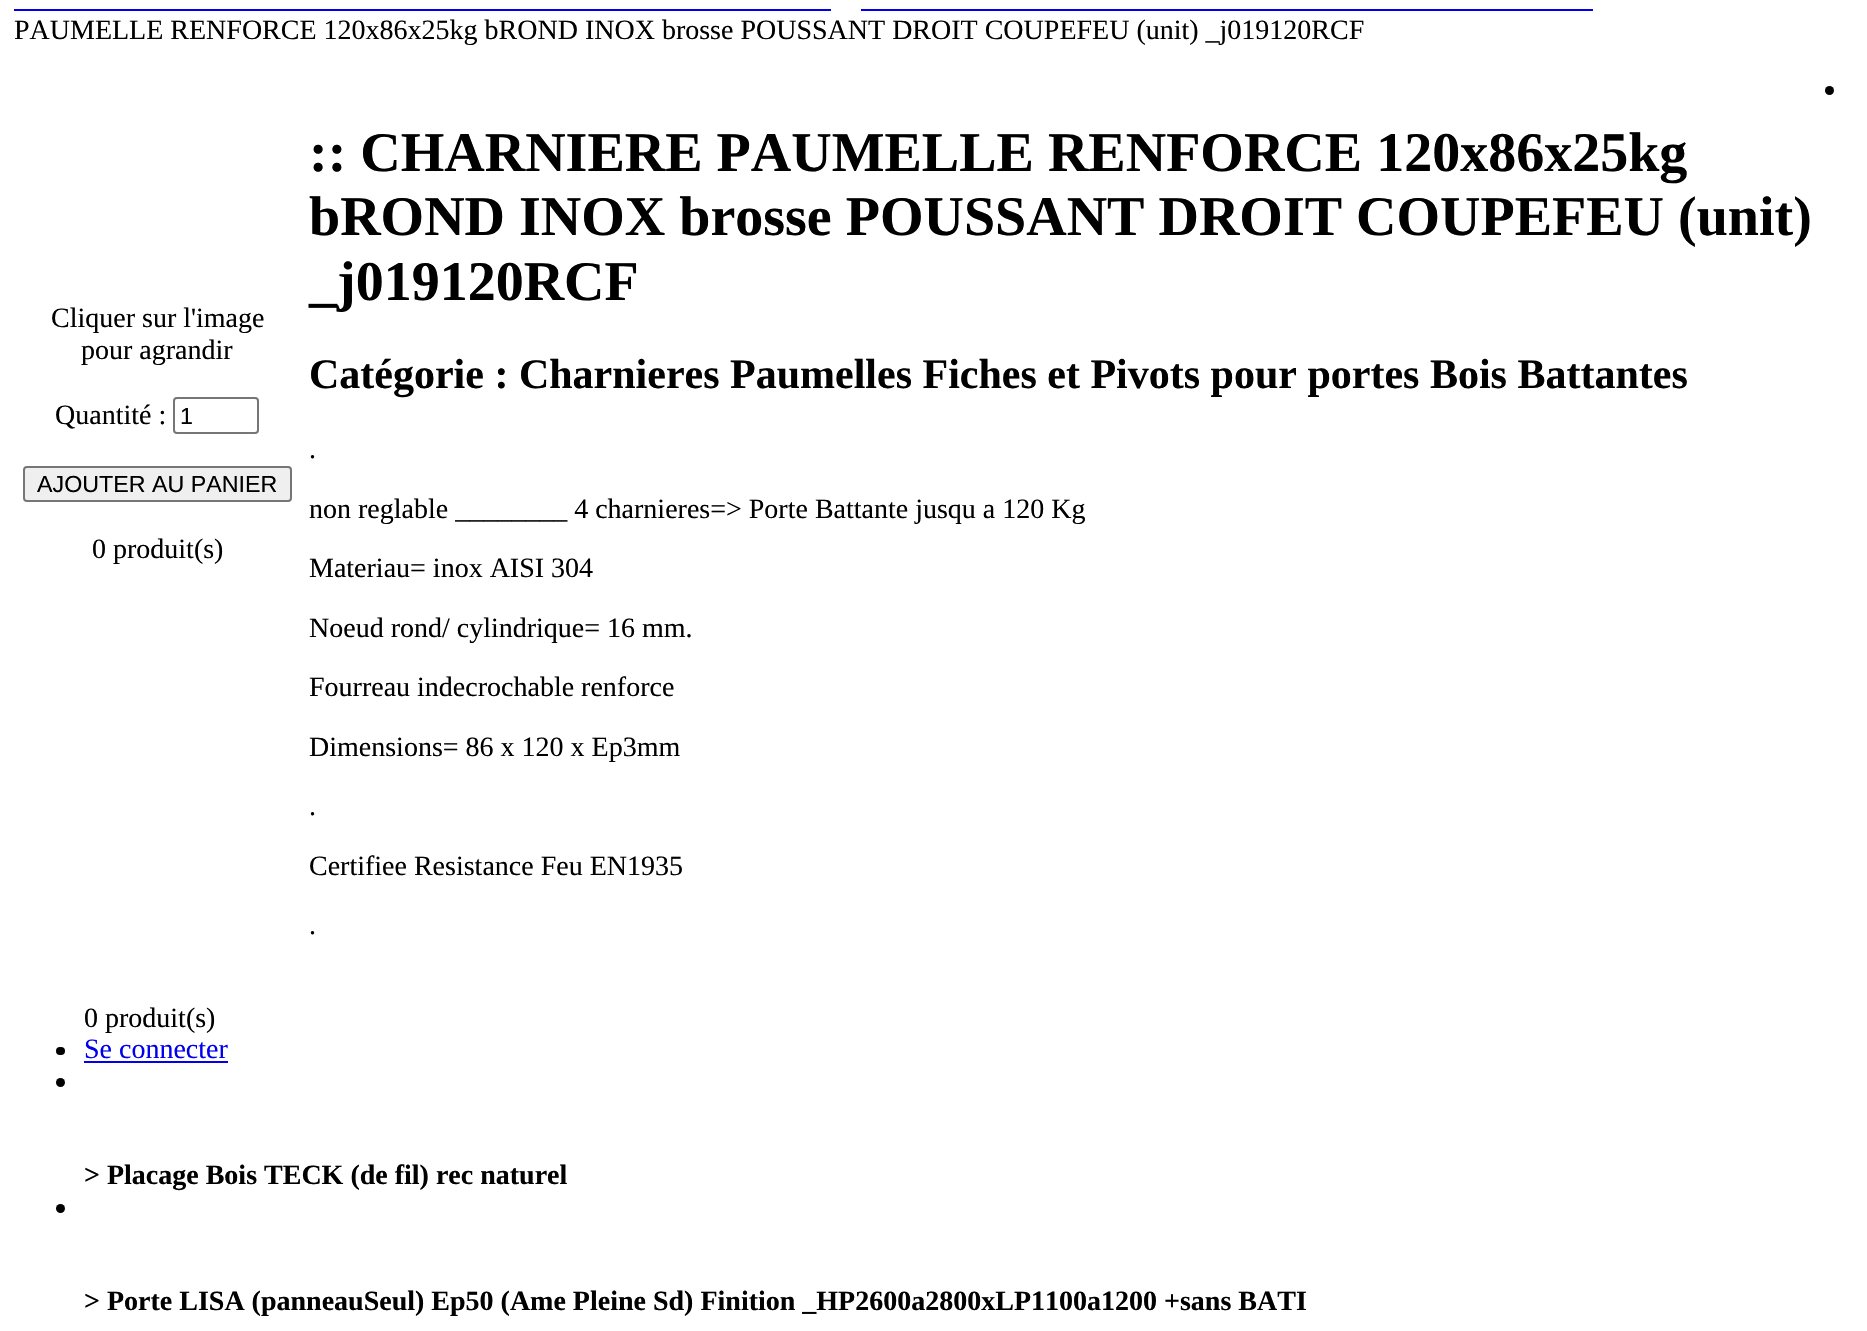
#include "include/core/SkBlurTypes.h"
#include "include/core/SkCanvas.h"
#include "include/core/SkData.h"
#include "include/core/SkFont.h"
#include "include/core/SkFontMgr.h"
#include "include/core/SkImage.h"
#include "include/core/SkMaskFilter.h"
#include "include/core/SkPaint.h"
#include "include/core/SkPathBuilder.h"
#include "include/core/SkTextBlob.h"
#include "include/effects/SkDashPathEffect.h"
#include "include/effects/SkGradientShader.h"
#include "include/utils/SkParsePath.h"

extern sk_sp<SkFontMgr> fontMgr;

void draw(SkCanvas* canvas) {
    SkPaint p;
    p.setAntiAlias(true);
    auto font = [&](const char* family, int weight, float size, bool italic = false) {
        SkFontStyle style(weight, SkFontStyle::kNormal_Width,
            italic ? SkFontStyle::kItalic_Slant : SkFontStyle::kUpright_Slant);
        SkFont result(fontMgr->matchFamilyStyle(family, style), size);
        result.setSubpixel(true);
        return result;
    };
    canvas->clear(0xFFFFFFFF);
    p.setColor(0xFF0000EE);
    canvas->drawRect(SkRect::MakeLTRB(14, 9, 831, 11), p);
    canvas->drawRect(SkRect::MakeLTRB(861, 9, 1593, 11), p);
    auto font1 = font("Liberation Serif", 400, 28);
    p.setColor(0xFF000000);
    {
        const struct { const char* s; float x, y; } items[] = {
            {"PAUMELLE RENFORCE 120x86x25kg bROND INOX brosse POUSSANT DROIT COUPEFEU (unit) _j019120RCF", 14, 39},
            {"Cliquer sur l'image", 51, 327},
            {"pour agrandir", 81, 359},
            {"Quantité :", 55, 424},
        };
        for (auto [s, x, y] : items) {
            canvas->drawString(s, x, y, font1, p);
        }
    }
    p.setStyle(SkPaint::kStroke_Style);
    p.setStrokeWidth(2);
    p.setColor(0xFF767676);
    canvas->drawRoundRect(SkRect::MakeLTRB(174, 398, 258, 433), 3, 3, p);
    auto font2 = font("Liberation Sans", 400, 23.25f);
    p.setStyle(SkPaint::kFill_Style);
    p.setColor(0xFF000000);
    canvas->drawString("1", 180, 424, font2, p);
    p.setColor(0xFFEFEFEF);
    canvas->drawRoundRect(SkRect::MakeLTRB(24, 467, 291, 501), 3, 3, p);
    p.setStyle(SkPaint::kStroke_Style);
    p.setColor(0xFF767676);
    canvas->drawRoundRect(SkRect::MakeLTRB(24, 467, 291, 501), 3, 3, p);
    p.setStyle(SkPaint::kFill_Style);
    p.setColor(0xFF000000);
    canvas->drawString("AJOUTER AU PANIER", 37, 492, font2, p);
    canvas->drawString("0 produit(s)", 92, 558, font1, p);
    auto font3 = font("Liberation Serif", 700, 56);
    {
        const struct { const char* s; float x, y; } items[] = {
            {":: CHARNIERE PAUMELLE RENFORCE 120x86x25kg", 309, 171},
            {"bROND INOX brosse POUSSANT DROIT COUPEFEU (unit)", 309, 235},
            {"_j019120RCF", 309, 300},
        };
        for (auto [s, x, y] : items) {
            canvas->drawString(s, x, y, font3, p);
        }
    }
    auto font4 = font("Liberation Serif", 700, 42);
    canvas->drawString("Catégorie : Charnieres Paumelles Fiches et Pivots pour portes Bois Battantes", 309, 388, font4, p);
    {
        const struct { const char* s; float x, y; } items[] = {
            {".", 309, 458},
            {"non reglable ________ 4 charnieres=> Porte Battante jusqu a 120 Kg", 309, 518},
            {"Materiau= inox AISI 304", 309, 577},
            {"Noeud rond/ cylindrique= 16 mm.", 309, 637},
            {"Fourreau indecrochable renforce", 309, 696},
            {"Dimensions= 86 x 120 x Ep3mm", 309, 756},
            {".", 309, 815},
            {"Certifiee Resistance Feu EN1935", 309, 875},
            {".", 309, 934},
        };
        for (auto [s, x, y] : items) {
            canvas->drawString(s, x, y, font1, p);
        }
    }
    canvas->drawCircle(1829.5f, 90.5f, 4.5f, p);
    canvas->drawString("0 produit(s)", 84, 1027, font1, p);
    canvas->drawRoundRect(SkRect::MakeLTRB(56, 1047, 65, 1055), 4, 4, p);
    p.setColor(0xFF0000EE);
    canvas->drawString("Se connecter", 84, 1058, font1, p);
    canvas->drawRect(SkRect::MakeLTRB(84, 1061, 228, 1063), p);
    p.setColor(0xFF000000);
    canvas->drawCircle(60.5f, 1082.5f, 4.5f, p);
    auto font5 = font("Liberation Serif", 700, 28);
    canvas->drawString("> Placage Bois TECK (de fil) rec naturel", 84, 1184, font5, p);
    canvas->drawCircle(60.5f, 1208.5f, 4.5f, p);
    canvas->drawString("> Porte LISA (panneauSeul) Ep50 (Ame Pleine Sd) Finition _HP2600a2800xLP1100a1200 +sans BATI", 84, 1310, font5, p);
}
